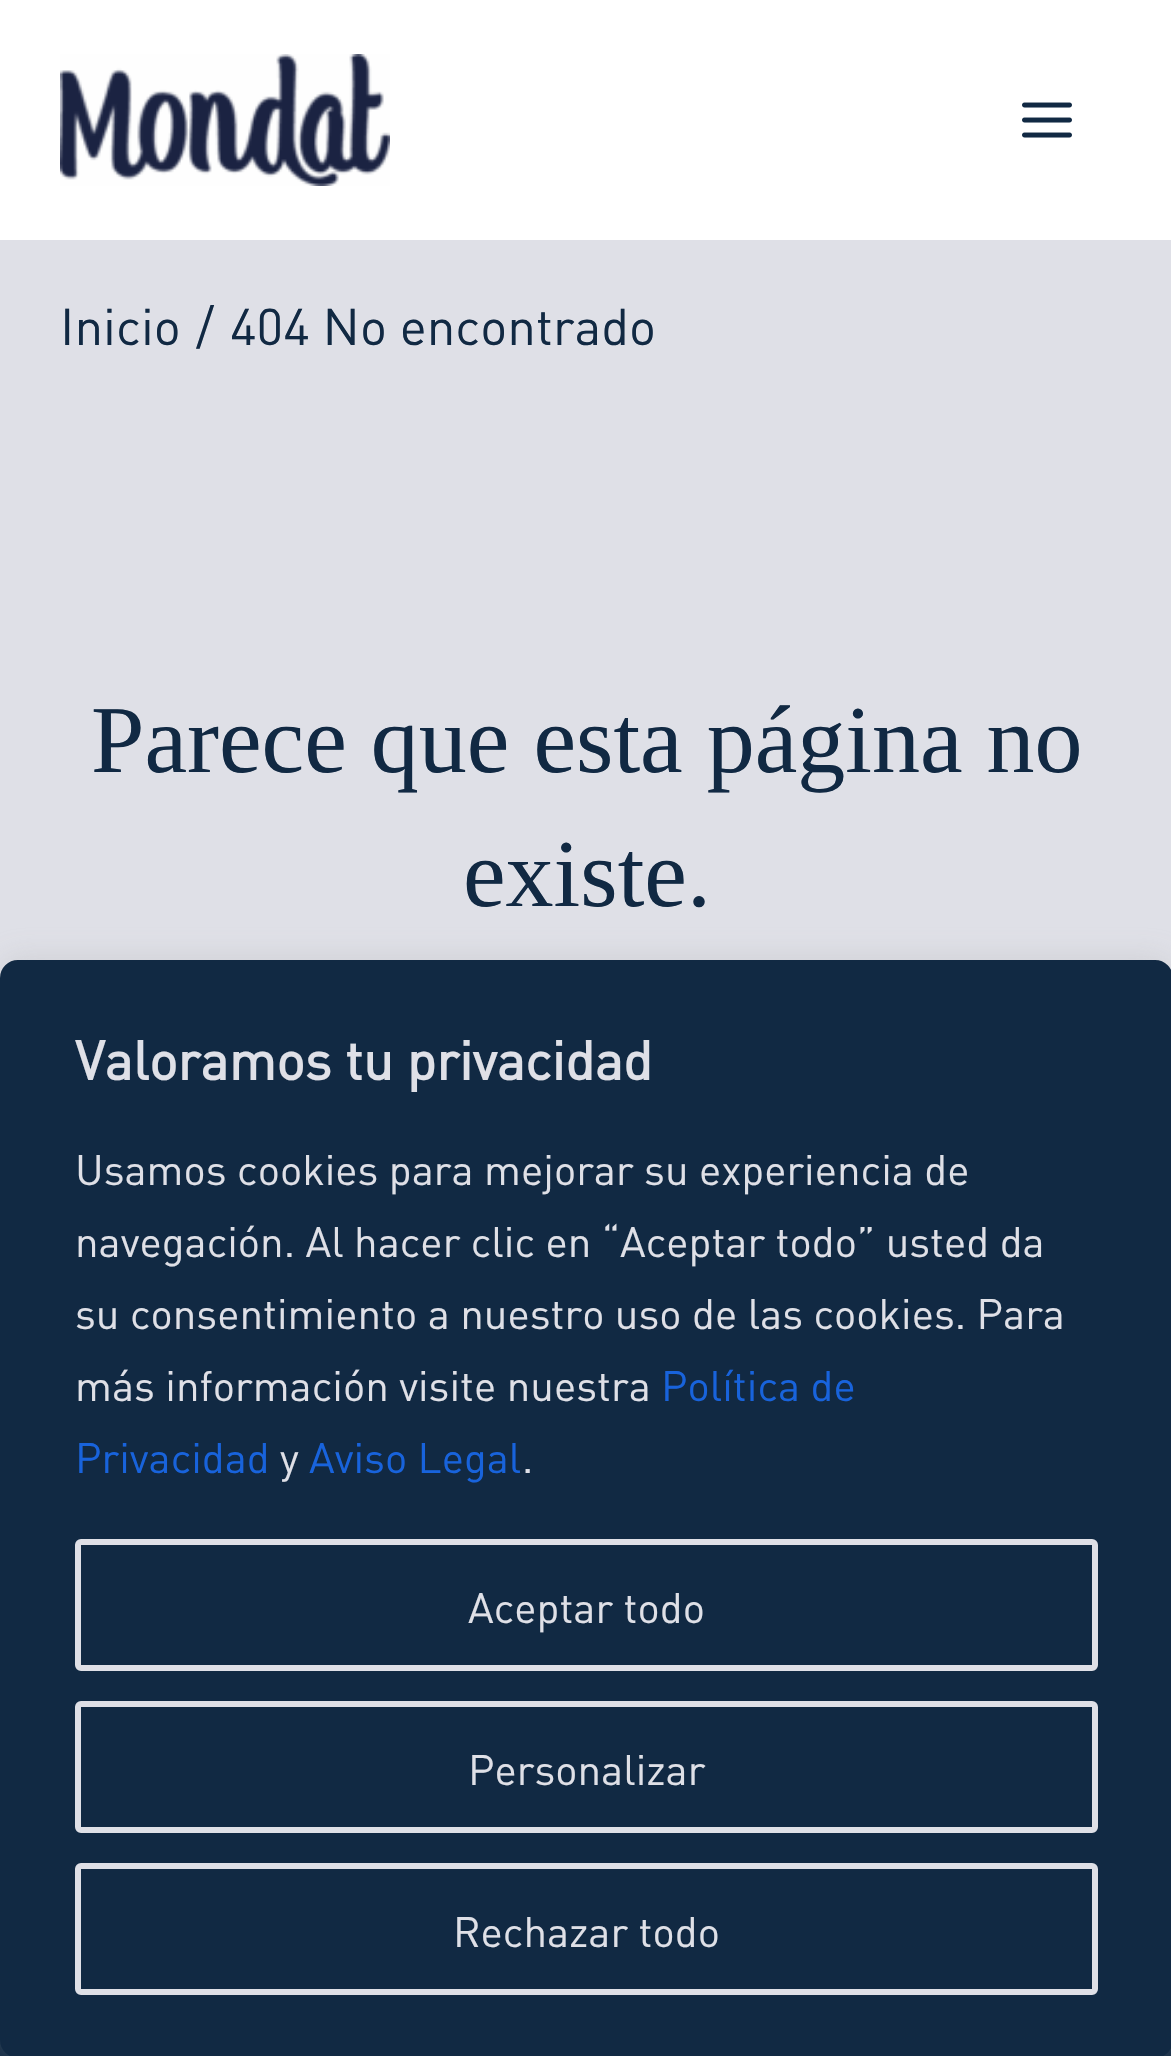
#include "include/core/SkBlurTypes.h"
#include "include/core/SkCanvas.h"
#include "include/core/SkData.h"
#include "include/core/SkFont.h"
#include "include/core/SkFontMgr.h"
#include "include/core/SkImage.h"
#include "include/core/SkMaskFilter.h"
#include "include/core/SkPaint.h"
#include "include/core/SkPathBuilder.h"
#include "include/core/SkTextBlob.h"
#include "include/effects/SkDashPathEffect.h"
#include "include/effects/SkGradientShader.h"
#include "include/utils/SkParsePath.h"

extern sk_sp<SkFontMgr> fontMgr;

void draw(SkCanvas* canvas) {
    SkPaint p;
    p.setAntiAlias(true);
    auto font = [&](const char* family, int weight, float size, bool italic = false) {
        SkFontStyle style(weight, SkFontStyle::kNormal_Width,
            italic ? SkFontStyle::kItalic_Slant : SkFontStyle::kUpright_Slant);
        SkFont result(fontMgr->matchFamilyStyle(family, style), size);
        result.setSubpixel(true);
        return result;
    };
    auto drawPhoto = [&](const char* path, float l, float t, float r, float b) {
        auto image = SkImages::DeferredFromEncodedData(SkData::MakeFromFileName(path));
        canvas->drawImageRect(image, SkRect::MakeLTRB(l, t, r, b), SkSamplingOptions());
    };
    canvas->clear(0xFFDFE0E7);
    p.setColor(0xFFFFFFFF);
    canvas->drawRect(SkRect::MakeLTRB(0, 0, 1171, 240), p);
    drawPhoto("media/1.png", 60, 54, 390, 186);
    drawPhoto("media/2.png", 1022, 102, 1072, 138);
    auto font1 = font("DIN", 400, 51);
    p.setColor(0xFF112943);
    {
        const struct { const char* s; float x, y; } items[] = {
            {"Inicio", 60, 345},
            {"/", 196, 345},
            {"404 No encontrado", 230, 345},
        };
        for (auto [s, x, y] : items) {
            canvas->drawString(s, x, y, font1, p);
        }
    }
    auto font2 = font("Liberation Serif", 400, 96);
    canvas->drawString("Parece que esta página no", 91, 772, font2, p);
    canvas->drawString("existe.", 463, 906, font2, p);
    canvas->drawRect(SkRect::MakeLTRB(0, 2040, 1171, 2056), p);
    p.setColor(0x4DACABAB);
    p.setMaskFilter(SkMaskFilter::MakeBlur(kNormal_SkBlurStyle, 15));
    canvas->drawRoundRect(SkRect::MakeLTRB(0, 957, 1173, 2055), 18, 18, p);
    p.setMaskFilter(nullptr);
    p.setColor(0xFF112943);
    canvas->drawRoundRect(SkRect::MakeLTRB(1.5f, 961.5f, 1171.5f, 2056.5f), 16.5f, 16.5f, p);
    p.setStyle(SkPaint::kStroke_Style);
    p.setStrokeWidth(3);
    canvas->drawRoundRect(SkRect::MakeLTRB(1.5f, 961.5f, 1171.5f, 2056.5f), 16.5f, 16.5f, p);
    auto font3 = font("DIN", 700, 54);
    p.setStyle(SkPaint::kFill_Style);
    p.setColor(0xFFDFE0E7);
    canvas->drawString("Valoramos tu privacidad", 75, 1080, font3, p);
    auto font4 = font("DIN", 400, 42);
    {
        const struct { const char* s; float x, y; } items[] = {
            {"Usamos cookies para mejorar su experiencia de", 75, 1185},
            {"navegación. Al hacer clic en “Aceptar todo” usted da", 75, 1257},
            {"su consentimiento a nuestro uso de las cookies. Para", 75, 1329},
            {"más información visite nuestra", 75, 1401},
        };
        for (auto [s, x, y] : items) {
            canvas->drawString(s, x, y, font4, p);
        }
    }
    p.setColor(0xFF1863DC);
    canvas->drawString("Política de", 661, 1401, font4, p);
    canvas->drawString("Privacidad", 75, 1473, font4, p);
    p.setColor(0xFFDFE0E7);
    canvas->drawString("y", 280, 1473, font4, p);
    p.setColor(0xFF1863DC);
    canvas->drawString("Aviso Legal", 309, 1473, font4, p);
    p.setColor(0xFFDFE0E7);
    canvas->drawString(".", 522, 1473, font4, p);
    p.setStyle(SkPaint::kStroke_Style);
    p.setStrokeWidth(6);
    canvas->drawRoundRect(SkRect::MakeLTRB(78, 1542, 1095, 1668), 3, 3, p);
    p.setStyle(SkPaint::kFill_Style);
    canvas->drawString("Aceptar todo", 468, 1623, font4, p);
    p.setStyle(SkPaint::kStroke_Style);
    canvas->drawRoundRect(SkRect::MakeLTRB(78, 1704, 1095, 1830), 3, 3, p);
    p.setStyle(SkPaint::kFill_Style);
    canvas->drawString("Personalizar", 468, 1785, font4, p);
    p.setStyle(SkPaint::kStroke_Style);
    canvas->drawRoundRect(SkRect::MakeLTRB(78, 1866, 1095, 1992), 3, 3, p);
    p.setStyle(SkPaint::kFill_Style);
    canvas->drawString("Rechazar todo", 453, 1947, font4, p);
}
